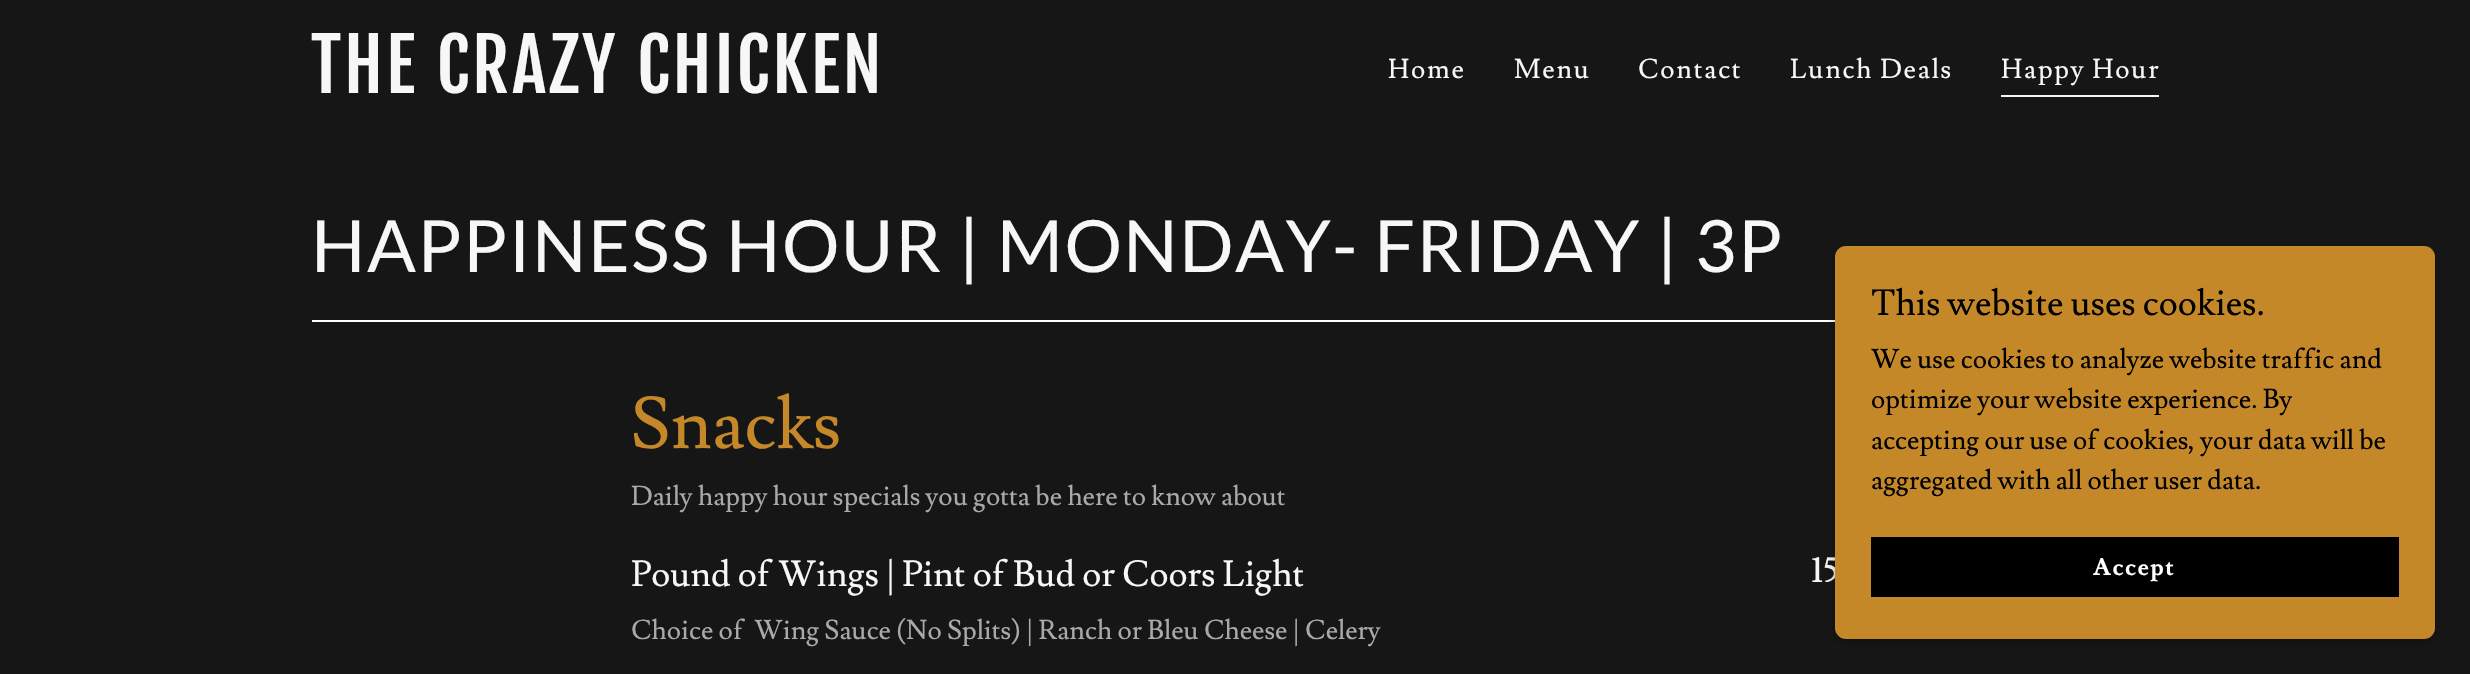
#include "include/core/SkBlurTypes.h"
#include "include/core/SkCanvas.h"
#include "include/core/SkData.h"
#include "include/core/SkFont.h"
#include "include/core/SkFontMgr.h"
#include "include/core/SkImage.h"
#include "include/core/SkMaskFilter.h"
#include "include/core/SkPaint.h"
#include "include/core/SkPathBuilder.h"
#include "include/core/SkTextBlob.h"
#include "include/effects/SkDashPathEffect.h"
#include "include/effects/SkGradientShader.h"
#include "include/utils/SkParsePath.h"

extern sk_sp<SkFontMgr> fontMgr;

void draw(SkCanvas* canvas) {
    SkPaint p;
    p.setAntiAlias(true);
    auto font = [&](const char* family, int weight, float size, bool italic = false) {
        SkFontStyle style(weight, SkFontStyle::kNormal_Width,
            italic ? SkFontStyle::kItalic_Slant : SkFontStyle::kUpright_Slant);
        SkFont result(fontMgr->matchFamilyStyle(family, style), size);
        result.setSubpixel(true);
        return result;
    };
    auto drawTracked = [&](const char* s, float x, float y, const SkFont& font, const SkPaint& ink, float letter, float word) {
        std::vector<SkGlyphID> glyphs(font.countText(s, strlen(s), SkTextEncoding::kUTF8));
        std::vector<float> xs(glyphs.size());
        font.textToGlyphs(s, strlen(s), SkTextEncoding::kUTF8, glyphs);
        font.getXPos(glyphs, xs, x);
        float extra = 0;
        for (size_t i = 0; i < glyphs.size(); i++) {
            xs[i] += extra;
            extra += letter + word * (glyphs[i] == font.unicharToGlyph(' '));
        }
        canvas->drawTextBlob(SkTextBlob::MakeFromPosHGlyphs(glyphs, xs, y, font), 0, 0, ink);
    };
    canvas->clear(0xFF161616);
    auto font1 = font("Fjalla One", 400, 72);
    p.setColor(0xFFF7F7F7);
    drawTracked("THE CRAZY CHICKEN", 311, 93, font1, p, 3, 0);
    auto font2 = font("Lusitana", 400, 27);
    {
        const struct { const char* s; float x, y; } items[] = {
            {"Home", 1388, 78},
            {"Menu", 1514, 78},
            {"Contact", 1638, 78},
            {"Lunch Deals", 1790, 78},
        };
        for (auto [s, x, y] : items) {
            drawTracked(s, x, y, font2, p, 1.75f, 0);
        }
    }
    canvas->drawRect(SkRect::MakeLTRB(2001, 95, 2159, 97), p);
    drawTracked("Happy Hour", 2001, 78, font2, p, 1.75f, 0);
    auto font3 = font("Lato", 400, 72);
    drawTracked("HAPPINESS HOUR | MONDAY- FRIDAY | 3P", 311, 272, font3, p, 1.5f, 0);
    p.setColor(0xFFFFFFFF);
    canvas->drawRect(SkRect::MakeLTRB(312, 320, 1835, 322), p);
    auto font4 = font("Lusitana", 400, 72);
    p.setColor(0xFFC58829);
    canvas->drawString("Snacks", 631, 448, font4, p);
    p.setColor(0xFFA9A9A9);
    canvas->drawString("Daily happy hour specials you gotta be here to know about", 631, 505, font2, p);
    auto font5 = font("Lusitana", 400, 36);
    p.setColor(0xFFF7F7F7);
    canvas->drawString("Pound of Wings | Pint of Bud or Coors Light", 631, 586, font5, p);
    canvas->drawString("15", 1811, 582, font5, p);
    p.setColor(0xFFA9A9A9);
    canvas->drawString("Choice of  Wing Sauce (No Splits) | Ranch or Bleu Cheese | Celery", 631, 639, font2, p);
    p.setColor(0x4D000000);
    p.setMaskFilter(SkMaskFilter::MakeBlur(kNormal_SkBlurStyle, 4.5f));
    canvas->drawRoundRect(SkRect::MakeLTRB(1835, 249, 2435, 642), 11, 11, p);
    p.setMaskFilter(nullptr);
    p.setColor(0xFFC58829);
    canvas->drawRoundRect(SkRect::MakeLTRB(1835, 246, 2435, 639), 11, 11, p);
    p.setColor(0xFF000000);
    canvas->drawString("This website uses cookies.", 1871, 315, font5, p);
    {
        const struct { const char* s; float x, y; } items[] = {
            {"We use cookies to analyze website traffic and", 1871, 368},
            {"optimize your website experience. By", 1871, 408},
            {"accepting our use of cookies, your data will be", 1871, 449},
            {"aggregated with all other user data.", 1871, 489},
        };
        for (auto [s, x, y] : items) {
            canvas->drawString(s, x, y, font2, p);
        }
    }
    canvas->drawRect(SkRect::MakeLTRB(1871, 537, 2399, 597), p);
    auto font6 = font("Lusitana", 700, 24);
    p.setColor(0xFFFFFFFF);
    drawTracked("Accept", 2093, 575, font6, p, 1.5f, 0);
}
